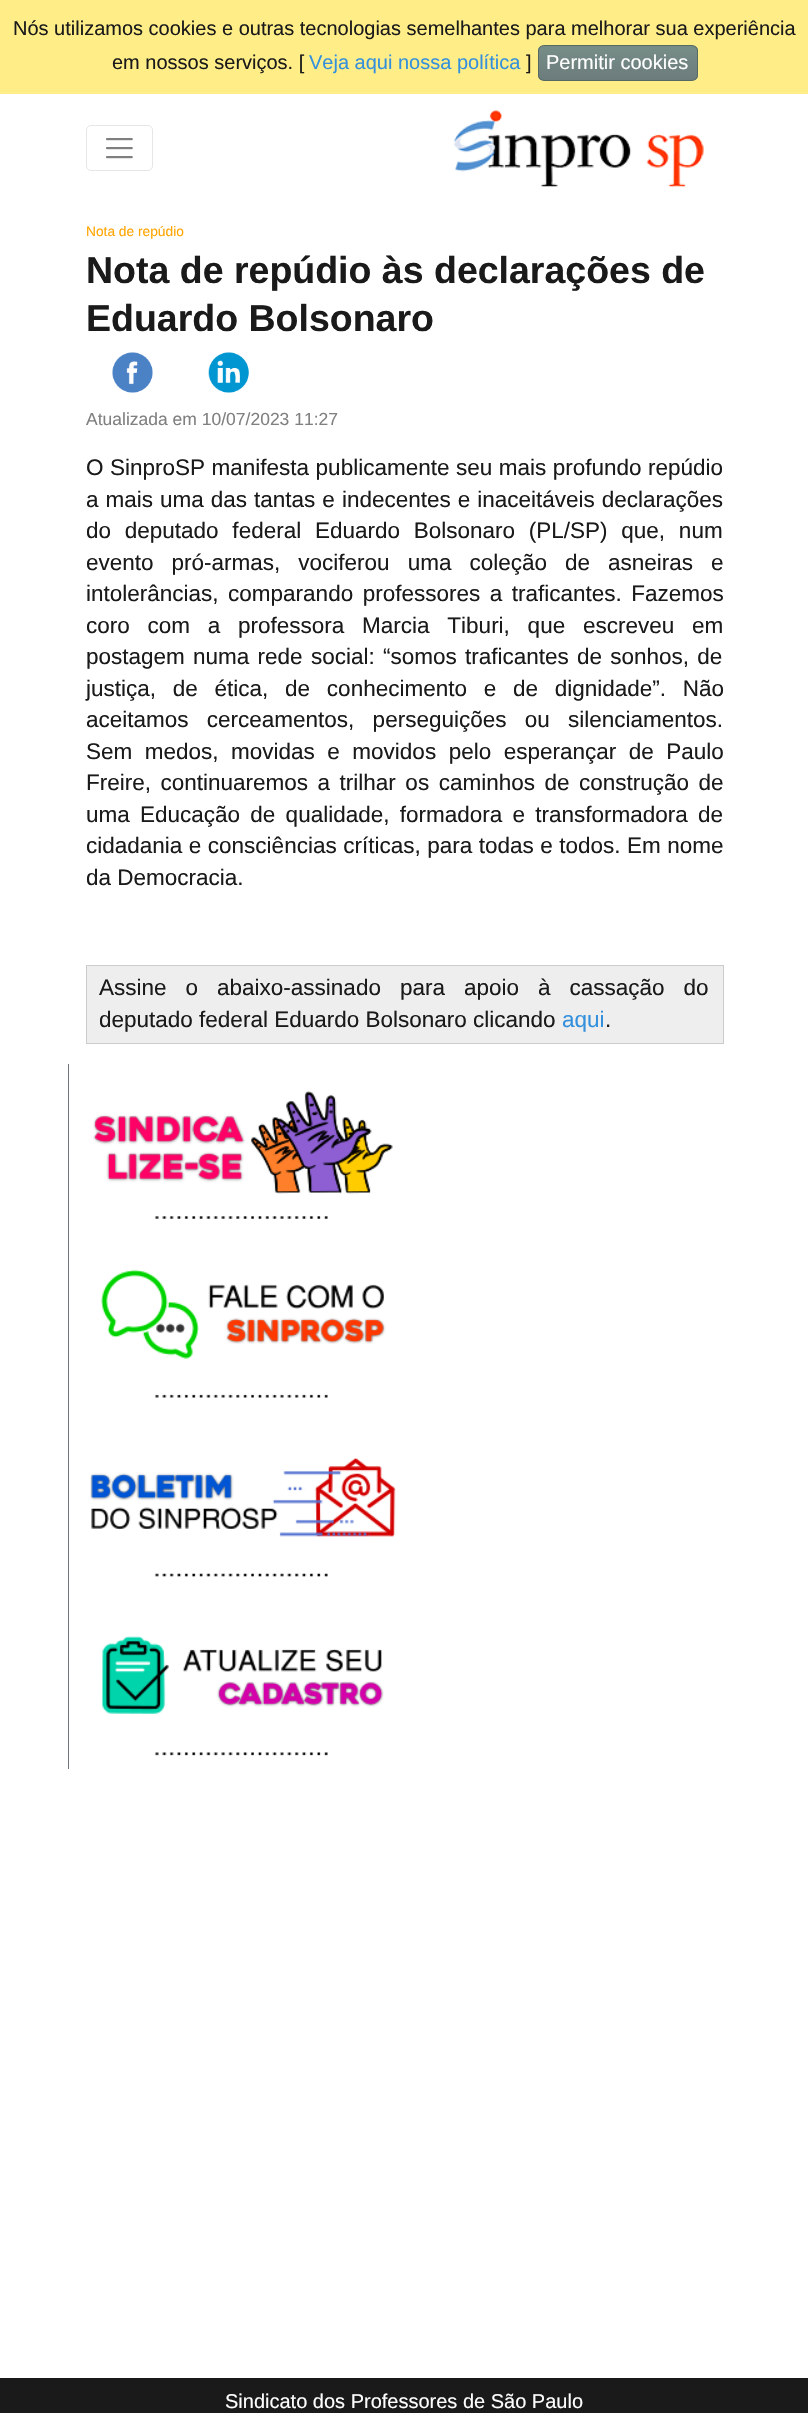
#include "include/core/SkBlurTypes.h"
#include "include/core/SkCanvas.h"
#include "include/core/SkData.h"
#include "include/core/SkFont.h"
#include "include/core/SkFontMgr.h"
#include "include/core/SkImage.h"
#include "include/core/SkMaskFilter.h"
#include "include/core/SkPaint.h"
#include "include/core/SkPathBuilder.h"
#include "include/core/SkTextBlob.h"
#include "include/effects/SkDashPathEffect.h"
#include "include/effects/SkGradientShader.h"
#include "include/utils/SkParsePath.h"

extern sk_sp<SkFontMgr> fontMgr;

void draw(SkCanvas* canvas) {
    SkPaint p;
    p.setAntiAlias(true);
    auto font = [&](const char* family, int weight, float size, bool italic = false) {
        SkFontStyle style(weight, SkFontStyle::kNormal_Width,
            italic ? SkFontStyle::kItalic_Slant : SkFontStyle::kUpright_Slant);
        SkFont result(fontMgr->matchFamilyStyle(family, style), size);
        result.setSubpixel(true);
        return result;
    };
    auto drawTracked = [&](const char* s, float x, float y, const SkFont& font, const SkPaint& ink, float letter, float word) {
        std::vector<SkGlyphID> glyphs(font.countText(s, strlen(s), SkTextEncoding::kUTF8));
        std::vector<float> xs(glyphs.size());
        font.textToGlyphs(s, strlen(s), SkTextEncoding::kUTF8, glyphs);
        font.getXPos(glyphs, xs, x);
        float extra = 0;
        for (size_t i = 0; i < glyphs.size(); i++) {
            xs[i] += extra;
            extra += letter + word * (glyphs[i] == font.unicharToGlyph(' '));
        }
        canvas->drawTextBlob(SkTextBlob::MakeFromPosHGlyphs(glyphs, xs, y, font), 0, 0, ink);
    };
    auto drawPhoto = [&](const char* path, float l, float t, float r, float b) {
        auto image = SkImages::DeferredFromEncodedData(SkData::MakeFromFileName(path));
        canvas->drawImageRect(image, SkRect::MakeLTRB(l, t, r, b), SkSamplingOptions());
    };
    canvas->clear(0xFFFFFFFF);
    p.setColor(0xFFFFEE88);
    canvas->drawRect(SkRect::MakeLTRB(0, 0, 808, 94), p);
    auto font1 = font("Liberation Sans", 400, 20);
    p.setColor(0xFF1A1A1A);
    canvas->drawString("Nós utilizamos cookies e outras tecnologias semelhantes para melhorar sua experiência", 13, 35, font1, p);
    canvas->drawString("em nossos serviços. [", 112, 69, font1, p);
    p.setColor(0xFF3490DC);
    canvas->drawString("Veja aqui nossa política", 309, 69, font1, p);
    p.setColor(0xFF1A1A1A);
    canvas->drawString("]", 526, 69, font1, p);
    canvas->save();
    canvas->clipPath(SkPathBuilder().moveTo(544, 45).lineTo(692, 45).cubicTo(695.5f, 45, 698, 47.5f, 698, 51).lineTo(698, 75).cubicTo(698, 78.5f, 695.5f, 81, 692, 81).lineTo(544, 81).cubicTo(540.5f, 81, 538, 78.5f, 538, 75).lineTo(538, 51).cubicTo(538, 47.5f, 540.5f, 45, 544, 45).close().detach(), true);
    {
        const SkColor colors[] = {0xFF768D87, 0xFF6C7C7C};
        const float stops[] = {0.05f, 1};
        const SkPoint ends[] = {{618, 46}, {618, 80}};
        p.setShader(SkGradientShader::MakeLinear(ends, colors, stops, 2, SkTileMode::kClamp));
        p.setAlpha(255);
    }
    canvas->drawRect(SkRect::MakeLTRB(538, 46, 698, 80), p);
    canvas->restore();
    p.setStyle(SkPaint::kStroke_Style);
    p.setStrokeWidth(1);
    p.setShader(nullptr);
    p.setColor(0xFF566963);
    canvas->drawRoundRect(SkRect::MakeLTRB(538.5f, 45.5f, 697.5f, 80.5f), 5.5f, 5.5f, p);
    p.setStyle(SkPaint::kFill_Style);
    p.setColor(0xFFFFFFFF);
    canvas->drawString("Permitir cookies", 546, 69, font1, p);
    p.setStyle(SkPaint::kStroke_Style);
    p.setColor(0xFFE6E6E6);
    canvas->drawRoundRect(SkRect::MakeLTRB(86.5f, 125.5f, 152.5f, 170.5f), 4.5f, 4.5f, p);
    drawPhoto("media/1.png", 106, 138, 133, 159);
    drawPhoto("media/2.png", 453, 110, 704, 187);
    auto font2 = font("Liberation Sans", 400, 13.75f);
    p.setStyle(SkPaint::kFill_Style);
    p.setColor(0xFFFFA500);
    canvas->drawString("Nota de repúdio", 86, 236, font2, p);
    auto font3 = font("Liberation Sans", 700, 37.5f);
    p.setColor(0xFF1A1A1A);
    canvas->drawString("Nota de repúdio às declarações de", 86, 283, font3, p);
    canvas->drawString("Eduardo Bolsonaro", 86, 331, font3, p);
    drawPhoto("media/3.png", 112, 352, 153, 393);
    drawPhoto("media/4.png", 208, 352, 249, 393);
    auto font4 = font("Liberation Sans", 400, 17.5f);
    p.setColor(0xFF808080);
    canvas->drawString("Atualizada em 10/07/2023 11:27", 86, 425, font4, p);
    auto font5 = font("Liberation Sans", 400, 22.5f);
    p.setColor(0xFF1A1A1A);
    drawTracked("O SinproSP manifesta publicamente seu mais profundo repúdio", 86, 475, font5, p, 0, 0.25f);
    drawTracked("a mais uma das tantas e indecentes e inaceitáveis declarações", 86, 507, font5, p, 0, 0.75f);
    drawTracked("do deputado federal Eduardo Bolsonaro (PL/SP) que, num", 86, 538, font5, p, 0, 7.5f);
    drawTracked("evento pró-armas, vociferou uma coleção de asneiras e", 86, 570, font5, p, 0, 11.75f);
    drawTracked("intolerâncias, comparando professores a traficantes. Fazemos", 86, 601, font5, p, 0, 3.25f);
    drawTracked("coro com a professora Marcia Tiburi, que escreveu em", 86, 633, font5, p, 0, 11.5f);
    drawTracked("postagem numa rede social: “somos traficantes de sonhos, de", 86, 664, font5, p, 0, 2);
    drawTracked("justiça, de ética, de conhecimento e de dignidade”. Não", 86, 696, font5, p, 0, 10.5f);
    drawTracked("aceitamos cerceamentos, perseguições ou silenciamentos.", 86, 727, font5, p, 0, 12);
    drawTracked("Sem medos, movidas e movidos pelo esperançar de Paulo", 86, 759, font5, p, 0, 6.25f);
    drawTracked("Freire, continuaremos a trilhar os caminhos de construção de", 86, 790, font5, p, 0, 3.25f);
    drawTracked("uma Educação de qualidade, formadora e transformadora de", 86, 822, font5, p, 0, 4);
    drawTracked("cidadania e consciências críticas, para todas e todos. Em nome", 86, 853, font5, p, 0, 0.25f);
    canvas->drawString("da Democracia.", 86, 885, font5, p);
    p.setColor(0xFFEEEEEE);
    canvas->drawRect(SkRect::MakeLTRB(86.5f, 965.5f, 723.5f, 1043.5f), p);
    p.setStyle(SkPaint::kStroke_Style);
    p.setColor(0xFFCCCCCC);
    canvas->drawRect(SkRect::MakeLTRB(86.5f, 965.5f, 723.5f, 1043.5f), p);
    p.setStyle(SkPaint::kFill_Style);
    p.setColor(0xFF1A1A1A);
    drawTracked("Assine o abaixo-assinado para apoio à cassação do", 99, 995, font5, p, 0, 12.75f);
    canvas->drawString("deputado federal Eduardo Bolsonaro clicando", 99, 1027, font5, p);
    p.setColor(0xFF3490DC);
    canvas->drawString("aqui", 562, 1027, font5, p);
    p.setColor(0xFF1A1A1A);
    canvas->drawString(".", 605, 1027, font5, p);
    p.setColor(0xFF6C757D);
    canvas->drawRect(SkRect::MakeLTRB(68, 1064, 69, 1769), p);
    drawPhoto("media/5.png", 93, 1091, 393, 1219);
    drawPhoto("media/6.png", 101, 1269, 386, 1398);
    drawPhoto("media/7.png", 90, 1457, 396, 1577);
    drawPhoto("media/8.png", 101, 1636, 384, 1756);
    p.setColor(0xFF1A1A1A);
    canvas->drawRect(SkRect::MakeLTRB(0, 2378, 808, 2413), p);
    p.setColor(0xFFFFFFFF);
    canvas->drawString("Sindicato dos Professores de São Paulo", 225, 2408, font1, p);
}
